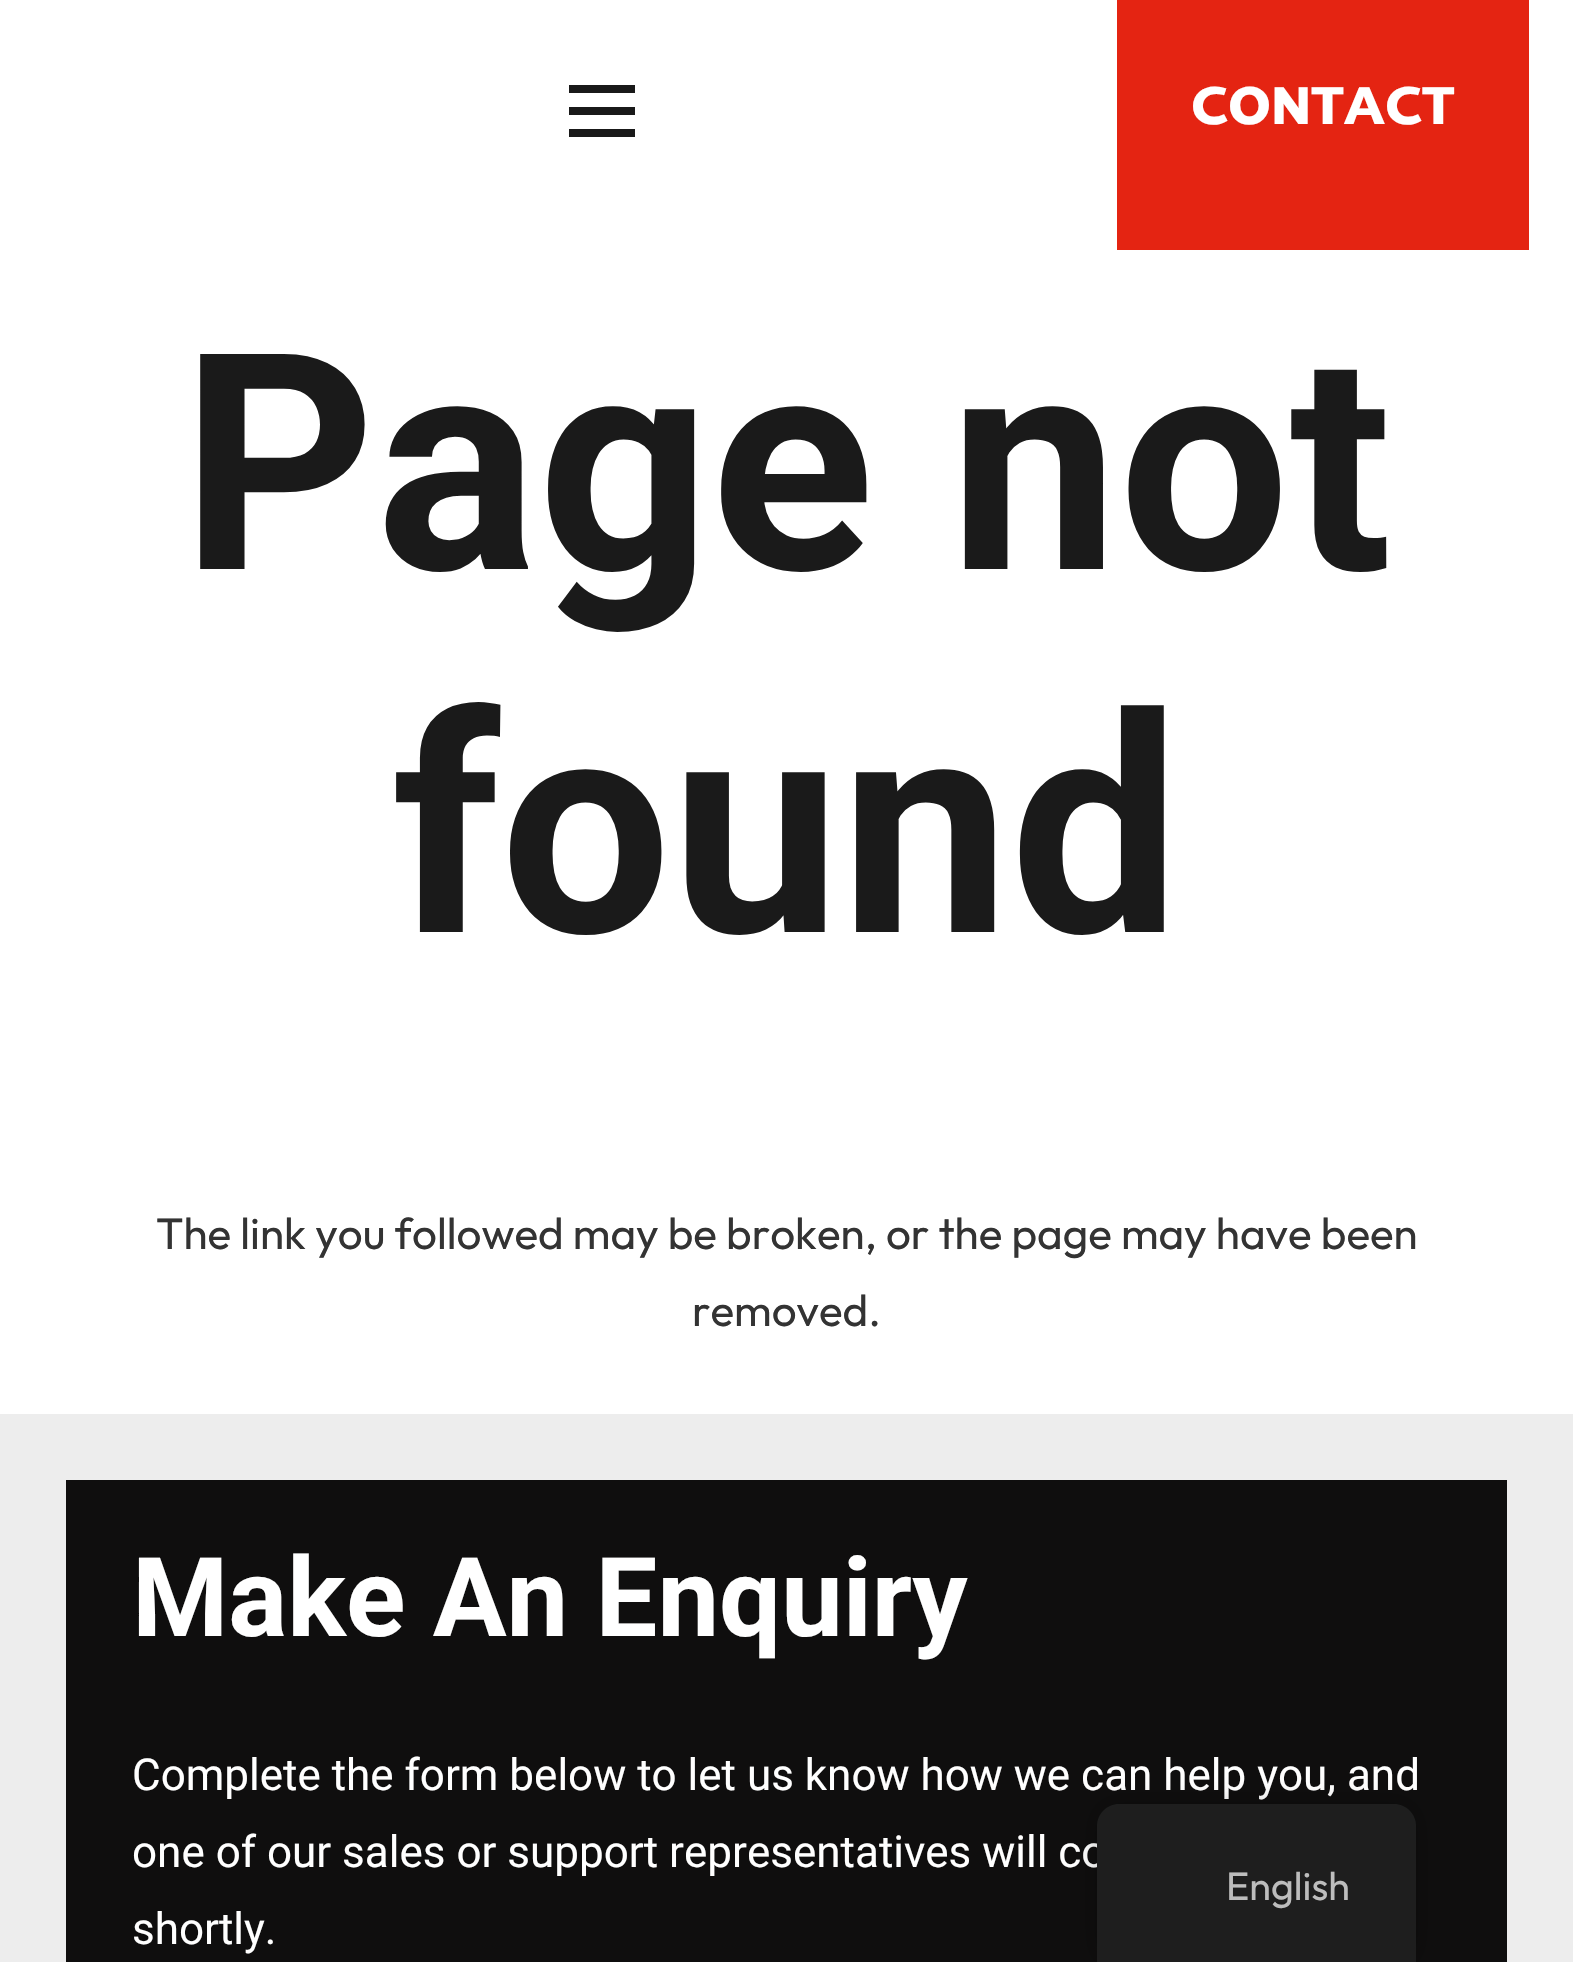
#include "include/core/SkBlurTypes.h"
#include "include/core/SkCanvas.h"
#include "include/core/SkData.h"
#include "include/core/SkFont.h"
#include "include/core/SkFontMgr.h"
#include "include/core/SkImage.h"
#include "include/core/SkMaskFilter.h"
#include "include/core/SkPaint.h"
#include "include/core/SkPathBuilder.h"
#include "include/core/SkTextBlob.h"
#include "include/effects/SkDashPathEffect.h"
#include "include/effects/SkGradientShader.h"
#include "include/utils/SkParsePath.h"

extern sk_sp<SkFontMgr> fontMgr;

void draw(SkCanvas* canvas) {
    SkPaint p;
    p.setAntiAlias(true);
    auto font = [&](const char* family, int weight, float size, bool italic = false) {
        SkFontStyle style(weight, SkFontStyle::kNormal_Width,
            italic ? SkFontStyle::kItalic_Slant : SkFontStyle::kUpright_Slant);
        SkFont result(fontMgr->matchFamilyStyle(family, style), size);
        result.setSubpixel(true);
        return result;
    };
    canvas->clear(0xFFFFFFFF);
    {
        const struct { float l, t, r, b; SkColor color; } items[] = {
            {569, 107, 635, 115, 0xFF191919},
            {569, 85, 635, 93, 0xFF191919},
            {569, 129, 635, 137, 0xFF191919},
            {1117, 0, 1529, 250, 0xFFE42412},
        };
        for (auto [l, t, r, b, color] : items) {
            p.setColor(color);
            canvas->drawRect(SkRect::MakeLTRB(l, t, r, b), p);
        }
    }
    auto font1 = font("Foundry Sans", 700, 55);
    p.setColor(0xFFFFFFFF);
    canvas->drawString("CONTACT", 1191, 124, font1, p);
    auto font2 = font("Roboto", 700, 302.5f);
    p.setColor(0xFF1A1A1A);
    canvas->drawString("Page not", 181, 569, font2, p);
    canvas->drawString("found", 392, 932, font2, p);
    auto font3 = font("Outfit", 400, 44);
    p.setColor(0xFF333333);
    canvas->drawString("The link you followed may be broken, or the page may have been", 156, 1249, font3, p);
    canvas->drawString("removed.", 692, 1326, font3, p);
    p.setColor(0xFFEDEDED);
    canvas->drawRect(SkRect::MakeLTRB(0, 1414, 1573, 1962), p);
    p.setColor(0xFF0F0E0E);
    canvas->drawRect(SkRect::MakeLTRB(66, 1480, 1507, 1962), p);
    auto font4 = font("Roboto", 700, 110);
    p.setColor(0xFFFFFFFF);
    canvas->drawString("Make An Enquiry", 132, 1636, font4, p);
    auto font5 = font("Roboto", 400, 44);
    {
        const struct { const char* s; float x, y; } items[] = {
            {"Complete the form below to let us know how we can help you, and", 132, 1790},
            {"one of our sales or support representatives will co", 132, 1867},
            {"shortly.", 132, 1944},
        };
        for (auto [s, x, y] : items) {
            canvas->drawString(s, x, y, font5, p);
        }
    }
    p.setColor(0x40000000);
    p.setMaskFilter(SkMaskFilter::MakeBlur(kNormal_SkBlurStyle, 11));
    canvas->drawRoundRect(SkRect::MakeLTRB(1097, 1804, 1416, 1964), 22, 22, p);
    p.setMaskFilter(nullptr);
    p.setColor(0xFF1E1E1E);
    canvas->drawPath(SkPathBuilder().moveTo(1119, 1804).lineTo(1394, 1804).cubicTo(1406, 1804, 1416, 1814, 1416, 1826).lineTo(1416, 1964).lineTo(1097, 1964).lineTo(1097, 1826).cubicTo(1097, 1814, 1107, 1804, 1119, 1804).close().detach(), p);
    auto font6 = font("Outfit", 400, 39.5f);
    p.setColor(0xFFBDBDBD);
    canvas->drawString("English", 1226, 1900, font6, p);
}
